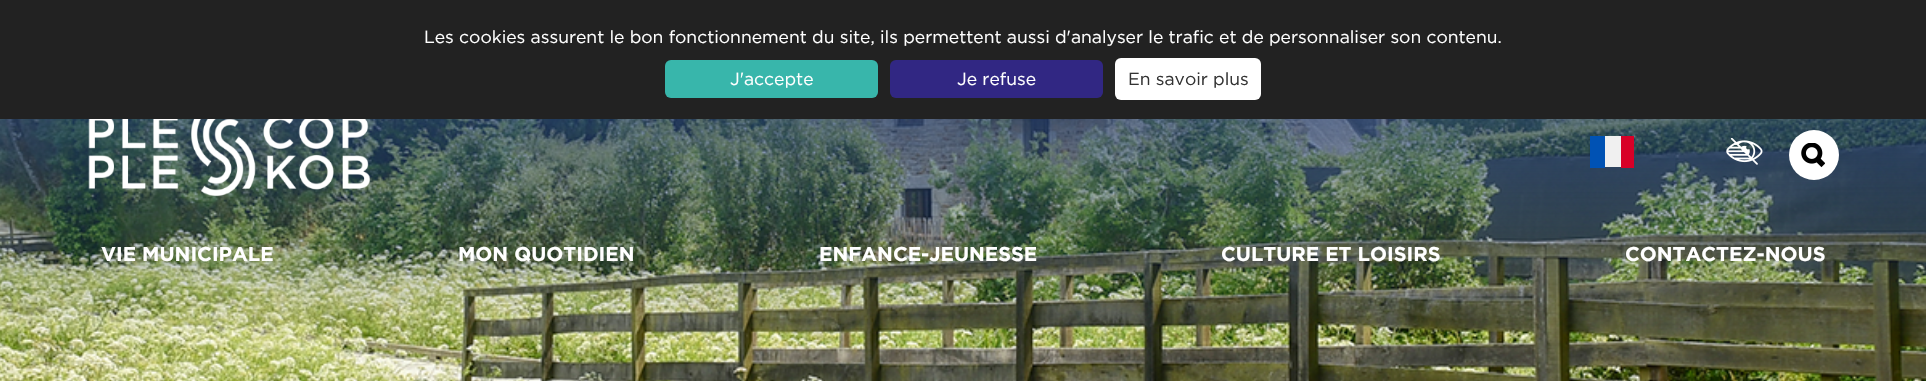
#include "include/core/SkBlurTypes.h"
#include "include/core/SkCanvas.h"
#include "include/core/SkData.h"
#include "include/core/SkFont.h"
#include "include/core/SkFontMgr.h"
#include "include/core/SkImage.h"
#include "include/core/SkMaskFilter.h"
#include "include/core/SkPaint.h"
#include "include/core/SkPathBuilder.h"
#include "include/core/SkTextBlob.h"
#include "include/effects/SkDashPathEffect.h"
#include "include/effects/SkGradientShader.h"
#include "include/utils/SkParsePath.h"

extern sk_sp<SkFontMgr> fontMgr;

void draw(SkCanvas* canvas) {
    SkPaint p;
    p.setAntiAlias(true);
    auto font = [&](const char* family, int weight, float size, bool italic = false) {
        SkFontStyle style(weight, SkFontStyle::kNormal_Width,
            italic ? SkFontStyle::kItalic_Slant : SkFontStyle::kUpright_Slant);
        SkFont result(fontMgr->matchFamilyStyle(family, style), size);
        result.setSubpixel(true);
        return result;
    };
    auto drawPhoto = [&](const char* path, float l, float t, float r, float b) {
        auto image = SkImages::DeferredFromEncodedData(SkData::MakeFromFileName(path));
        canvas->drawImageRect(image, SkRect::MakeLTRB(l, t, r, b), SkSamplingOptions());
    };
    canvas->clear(0xFFFFFFFF);
    p.setColor(0xFF222222);
    canvas->drawRect(SkRect::MakeLTRB(0, 0, 1926, 119), p);
    auto font1 = font("Gotham", 400, 17.5f);
    p.setColor(0xFFFFFFFF);
    canvas->drawString("Les cookies assurent le bon fonctionnement du site, ils permettent aussi d'analyser le trafic et de personnaliser son contenu.", 424, 43, font1, p);
    p.setColor(0xFF38B6AB);
    canvas->drawRoundRect(SkRect::MakeLTRB(665, 60, 878, 98), 6, 6, p);
    p.setColor(0xFFFFFFFF);
    canvas->drawString("J'accepte", 730, 85, font1, p);
    p.setColor(0xFF312783);
    canvas->drawRoundRect(SkRect::MakeLTRB(890, 60, 1103, 98), 6, 6, p);
    p.setColor(0xFFFFFFFF);
    canvas->drawString("Je refuse", 957, 85, font1, p);
    canvas->drawRoundRect(SkRect::MakeLTRB(1115, 58, 1261, 100), 6, 6, p);
    p.setColor(0xFF333333);
    canvas->drawString("En savoir plus", 1128, 85, font1, p);
    drawPhoto("media/1.png", 0, 119, 1926, 381);
    drawPhoto("media/2.png", 88, 119, 370, 197);
    {
        const struct { float l, t, r, b; SkColor color; } items[] = {
            {1605, 136, 1621, 167, 0xFFF0F0F0},
            {1590, 136, 1605, 168, 0xFF0052B4},
            {1621, 136, 1634, 168, 0xFFD80027},
        };
        for (auto [l, t, r, b, color] : items) {
            p.setColor(color);
            canvas->drawRect(SkRect::MakeLTRB(l, t, r, b), p);
        }
    }
    drawPhoto("media/3.png", 1726, 138, 1763, 165);
    p.setColor(0xFFFFFFFF);
    canvas->drawCircle(1814, 155, 25, p);
    drawPhoto("media/4.png", 1801, 143, 1825, 168);
    auto font2 = font("Gotham", 700, 20);
    {
        const struct { const char* s; float x, y; } items[] = {
            {"VIE MUNICIPALE", 101, 261},
            {"MON QUOTIDIEN", 458, 261},
            {"ENFANCE-JEUNESSE", 819, 261},
            {"CULTURE ET LOISIRS", 1221, 261},
            {"CONTACTEZ-NOUS", 1625, 261},
        };
        for (auto [s, x, y] : items) {
            canvas->drawString(s, x, y, font2, p);
        }
    }
}
